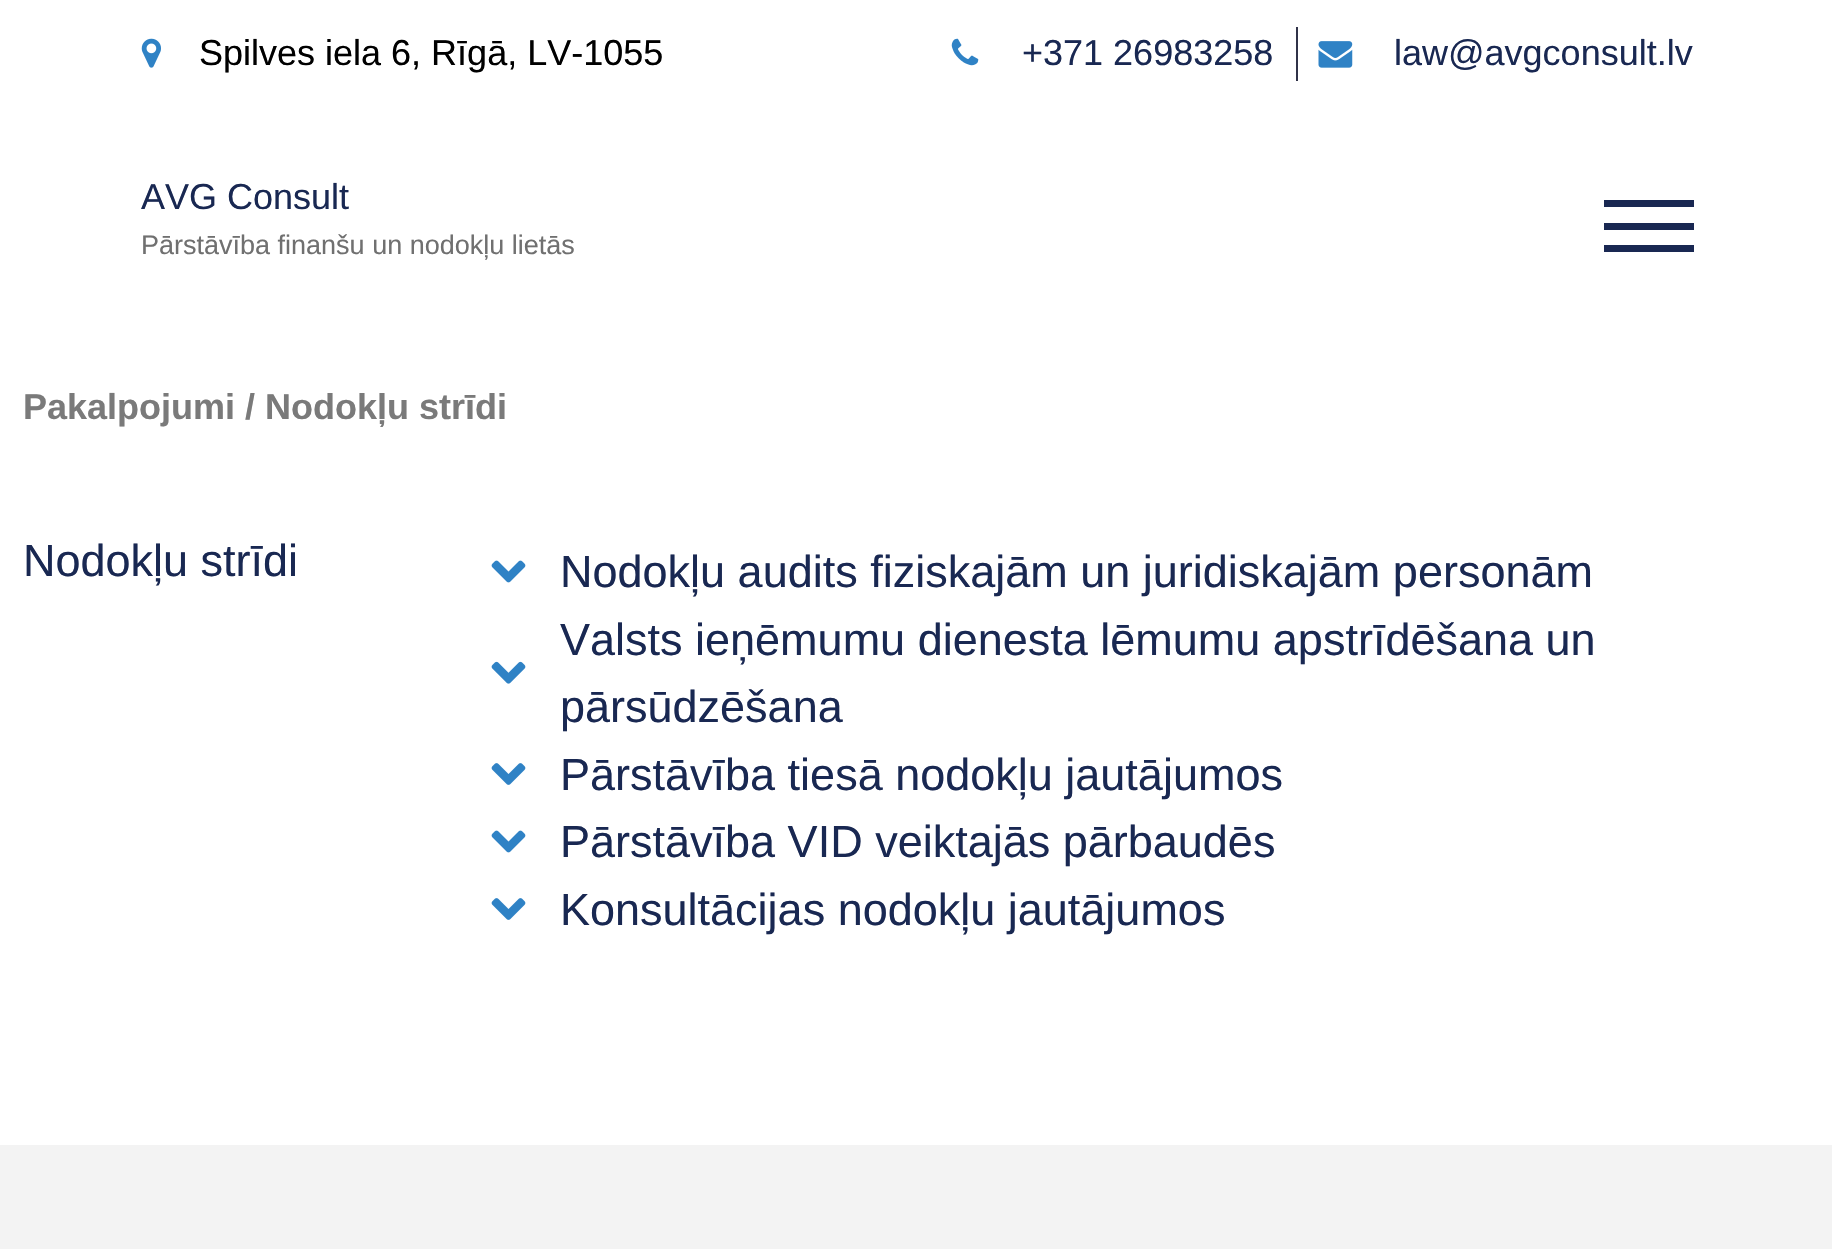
#include "include/core/SkBlurTypes.h"
#include "include/core/SkCanvas.h"
#include "include/core/SkData.h"
#include "include/core/SkFont.h"
#include "include/core/SkFontMgr.h"
#include "include/core/SkImage.h"
#include "include/core/SkMaskFilter.h"
#include "include/core/SkPaint.h"
#include "include/core/SkPathBuilder.h"
#include "include/core/SkTextBlob.h"
#include "include/effects/SkDashPathEffect.h"
#include "include/effects/SkGradientShader.h"
#include "include/utils/SkParsePath.h"

extern sk_sp<SkFontMgr> fontMgr;

void draw(SkCanvas* canvas) {
    SkPaint p;
    p.setAntiAlias(true);
    auto font = [&](const char* family, int weight, float size, bool italic = false) {
        SkFontStyle style(weight, SkFontStyle::kNormal_Width,
            italic ? SkFontStyle::kItalic_Slant : SkFontStyle::kUpright_Slant);
        SkFont result(fontMgr->matchFamilyStyle(family, style), size);
        result.setSubpixel(true);
        return result;
    };
    auto drawPhoto = [&](const char* path, float l, float t, float r, float b) {
        auto image = SkImages::DeferredFromEncodedData(SkData::MakeFromFileName(path));
        canvas->drawImageRect(image, SkRect::MakeLTRB(l, t, r, b), SkSamplingOptions());
    };
    canvas->clear(0xFFFFFFFF);
    drawPhoto("media/1.png", 141, 38, 161, 68);
    auto font1 = font("Liberation Sans", 400, 36);
    p.setColor(0xFF000000);
    canvas->drawString("Spilves iela 6, Rīgā, LV-1055", 199, 65, font1, p);
    drawPhoto("media/2.png", 951, 38, 979, 66);
    p.setColor(0xFF192852);
    canvas->drawString("+371 26983258", 1022, 65, font1, p);
    p.setColor(0xFF303248);
    canvas->drawRect(SkRect::MakeLTRB(1296, 27, 1298, 81), p);
    drawPhoto("media/3.png", 1318, 41, 1353, 68);
    p.setColor(0xFF192852);
    canvas->drawString("law@avgconsult.lv", 1394, 65, font1, p);
    canvas->drawString("AVG Consult", 141, 209, font1, p);
    auto font2 = font("Liberation Sans", 400, 27);
    p.setColor(0xFF707070);
    canvas->drawString("Pārstāvība finanšu un nodokļu lietās", 141, 254, font2, p);
    {
        const struct { float l, t, r, b; SkColor color; } items[] = {
            {1604, 223, 1694, 230, 0xFF192852},
            {1604, 200, 1694, 207, 0xFF192852},
            {1604, 245, 1694, 252, 0xFF192852},
        };
        for (auto [l, t, r, b, color] : items) {
            p.setColor(color);
            canvas->drawRect(SkRect::MakeLTRB(l, t, r, b), p);
        }
    }
    auto font3 = font("Liberation Sans", 700, 36);
    p.setColor(0xFF7A7A7A);
    canvas->drawString("Pakalpojumi / Nodokļu strīdi", 23, 419, font3, p);
    auto font4 = font("Liberation Sans", 400, 45);
    p.setColor(0xFF192852);
    canvas->drawString("Nodokļu strīdi", 23, 576, font4, p);
    drawPhoto("media/4.png", 491, 560, 526, 583);
    canvas->drawString("Nodokļu audits fiziskajām un juridiskajām personām", 560, 587, font4, p);
    drawPhoto("media/5.png", 491, 661, 526, 684);
    canvas->drawString("Valsts ieņēmumu dienesta lēmumu apstrīdēšana un", 560, 655, font4, p);
    canvas->drawString("pārsūdzēšana", 560, 722, font4, p);
    drawPhoto("media/6.png", 491, 763, 526, 785);
    canvas->drawString("Pārstāvība tiesā nodokļu jautājumos", 560, 790, font4, p);
    drawPhoto("media/4.png", 491, 830, 526, 853);
    canvas->drawString("Pārstāvība VID veiktajās pārbaudēs", 560, 857, font4, p);
    drawPhoto("media/6.png", 491, 898, 526, 920);
    canvas->drawString("Konsultācijas nodokļu jautājumos", 560, 925, font4, p);
    p.setColor(0xFFF3F3F3);
    canvas->drawRect(SkRect::MakeLTRB(0, 1145, 1832, 1249), p);
}
